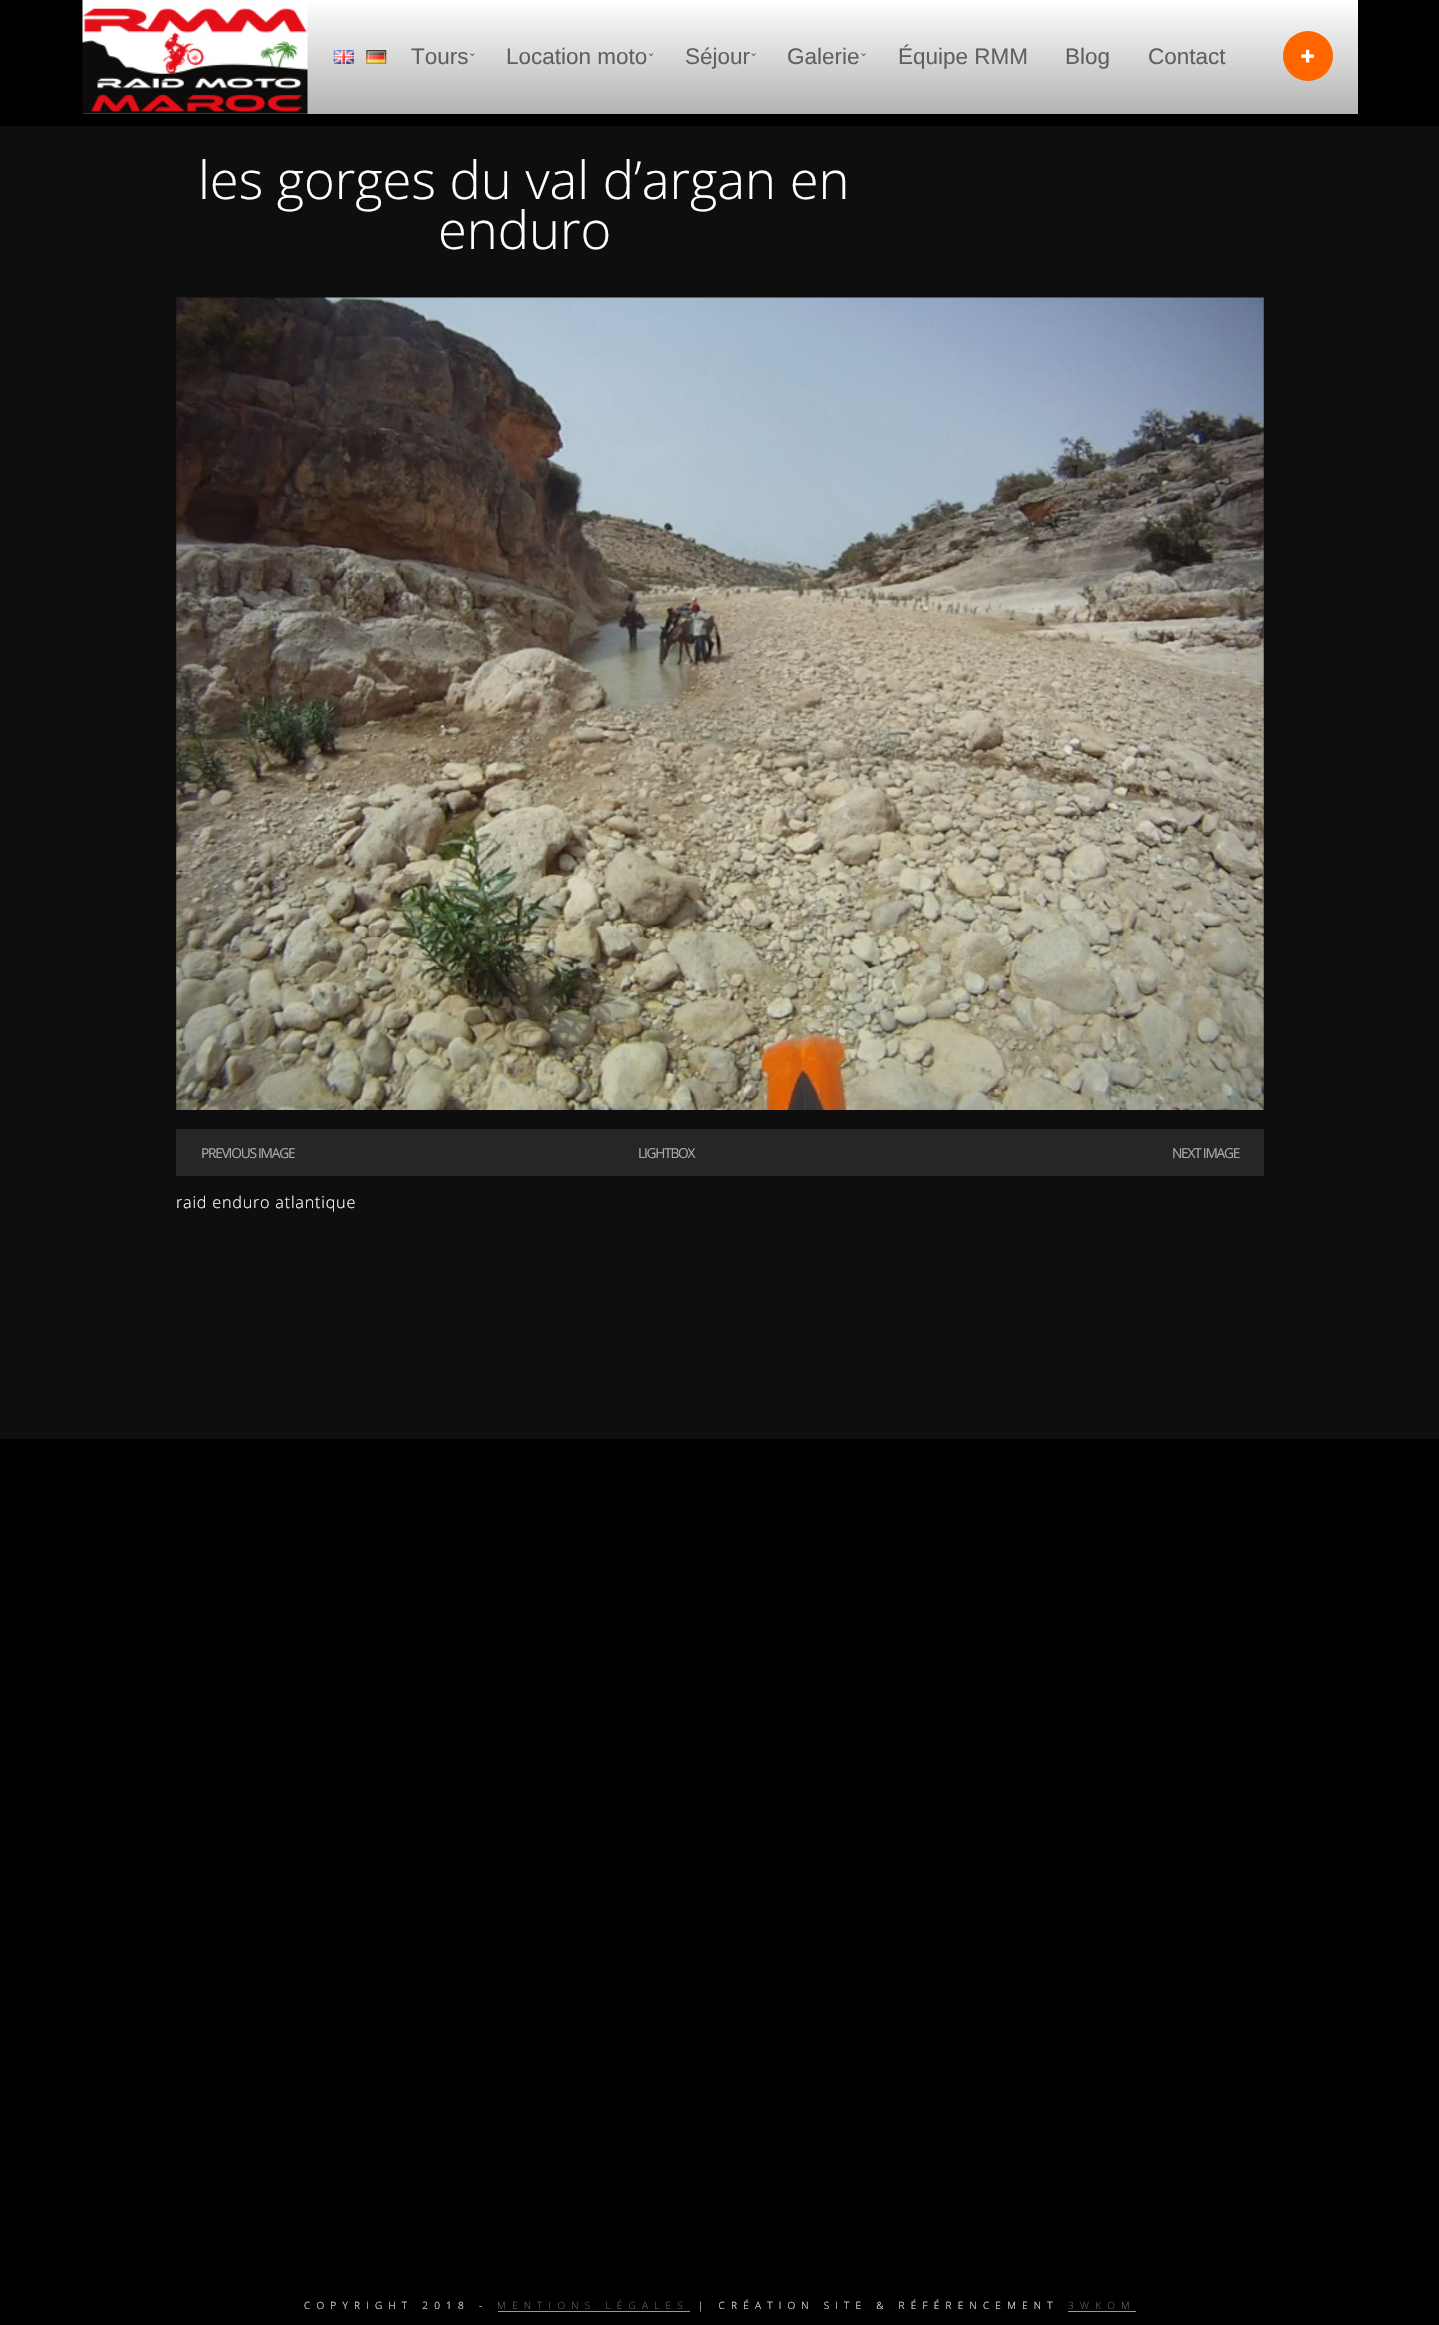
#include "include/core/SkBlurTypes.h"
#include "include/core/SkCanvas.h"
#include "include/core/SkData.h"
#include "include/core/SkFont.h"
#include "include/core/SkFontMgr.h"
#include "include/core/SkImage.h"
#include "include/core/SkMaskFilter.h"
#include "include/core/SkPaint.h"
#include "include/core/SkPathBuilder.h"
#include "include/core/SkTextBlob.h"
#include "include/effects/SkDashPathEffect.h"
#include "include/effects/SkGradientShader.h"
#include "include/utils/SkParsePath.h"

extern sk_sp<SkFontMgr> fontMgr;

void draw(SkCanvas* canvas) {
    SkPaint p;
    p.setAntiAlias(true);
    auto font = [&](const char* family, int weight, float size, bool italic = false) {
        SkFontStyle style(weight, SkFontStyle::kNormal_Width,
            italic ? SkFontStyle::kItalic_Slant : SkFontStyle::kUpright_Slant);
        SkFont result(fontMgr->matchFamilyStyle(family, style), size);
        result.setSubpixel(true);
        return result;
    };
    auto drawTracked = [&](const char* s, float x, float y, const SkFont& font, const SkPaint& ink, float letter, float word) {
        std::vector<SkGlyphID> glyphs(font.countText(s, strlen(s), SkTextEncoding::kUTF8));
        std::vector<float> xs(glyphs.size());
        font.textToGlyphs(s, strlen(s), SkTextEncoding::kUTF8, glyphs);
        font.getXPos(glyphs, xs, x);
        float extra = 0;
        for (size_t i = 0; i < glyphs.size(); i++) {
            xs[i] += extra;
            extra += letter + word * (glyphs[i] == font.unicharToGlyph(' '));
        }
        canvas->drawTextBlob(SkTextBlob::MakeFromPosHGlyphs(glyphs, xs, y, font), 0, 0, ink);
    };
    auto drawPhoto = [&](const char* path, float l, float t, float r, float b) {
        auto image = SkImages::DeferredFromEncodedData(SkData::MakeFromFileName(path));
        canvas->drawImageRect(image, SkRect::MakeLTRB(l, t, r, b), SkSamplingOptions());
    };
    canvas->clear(0xFF000000);
    {
        const SkColor colors[] = {0xFFFFFFFF, 0xFFB3B3B3};
        const float stops[] = {0, 1};
        const SkPoint ends[] = {{720, 0}, {720, 114}};
        p.setShader(SkGradientShader::MakeLinear(ends, colors, stops, 2, SkTileMode::kClamp));
        p.setAlpha(255);
    }
    canvas->drawRect(SkRect::MakeLTRB(83, 0, 1358, 114), p);
    drawPhoto("media/1.png", 82, 0, 308, 114);
    drawPhoto("media/2.png", 333, 50, 354, 64);
    drawPhoto("media/3.png", 366, 50, 387, 64);
    auto font1 = font("Liberation Sans", 400, 22.5f);
    p.setShader(nullptr);
    p.setColor(0xFF606060);
    canvas->drawString("Tours", 411, 64, font1, p);
    drawPhoto("media/4.png", 470, 53, 475, 56);
    canvas->drawString("Location moto", 506, 64, font1, p);
    drawPhoto("media/5.png", 649, 53, 654, 56);
    canvas->drawString("Séjour", 685, 64, font1, p);
    drawPhoto("media/6.png", 751, 53, 756, 56);
    canvas->drawString("Galerie", 787, 64, font1, p);
    drawPhoto("media/6.png", 861, 53, 866, 56);
    {
        const struct { const char* s; float x, y; } items[] = {
            {"Équipe RMM", 898, 64},
            {"Blog", 1065, 64},
            {"Contact", 1148, 64},
        };
        for (auto [s, x, y] : items) {
            canvas->drawString(s, x, y, font1, p);
        }
    }
    p.setColor(0xFFFF6600);
    canvas->drawCircle(1308, 56, 25, p);
    drawPhoto("media/7.png", 1301, 49, 1314, 63);
    p.setColor(0xFF0E0E0E);
    canvas->drawRect(SkRect::MakeLTRB(0, 126, 1439, 1439), p);
    auto font2 = font("Open Sans", 300, 52.5f);
    p.setColor(0xFFFFFFFF);
    canvas->drawString("les gorges du val d’argan en", 198, 199, font2, p);
    canvas->drawString("enduro", 438, 249, font2, p);
    drawPhoto("media/8.png", 176, 297, 1264, 1110);
    p.setColor(0xFF262626);
    canvas->drawRect(SkRect::MakeLTRB(176, 1129, 1264, 1176), p);
    auto font3 = font("Open Sans", 400, 13.75f);
    p.setColor(0xFFAAAAAA);
    {
        const struct { const char* s; float x, y; } items[] = {
            {"PREVIOUS IMAGE", 201, 1158},
            {"LIGHTBOX", 638, 1158},
            {"NEXT IMAGE", 1172, 1158},
        };
        for (auto [s, x, y] : items) {
            drawTracked(s, x, y, font3, p, -1.25f, 0);
        }
    }
    auto font4 = font("Open Sans", 300, 16.25f);
    p.setColor(0xFFFFFFFF);
    drawTracked("raid enduro atlantique", 176, 1208, font4, p, 0.75f, 0);
    auto font5 = font("Open Sans", 300, 10);
    p.setColor(0xFFEEEEEE);
    drawTracked("COPYRIGHT 2018 -", 304, 2309, font5, p, 6.25f, 0);
    p.setColor(0xFF666666);
    drawTracked("MENTIONS LÉGALES", 497, 2309, font5, p, 6.25f, 0);
    p.setColor(0xFF999999);
    canvas->drawRect(SkRect::MakeLTRB(498, 2311, 690, 2312), p);
    p.setColor(0xFFEEEEEE);
    drawTracked("| CRÉATION SITE & RÉFÉRENCEMENT", 698, 2309, font5, p, 6.25f, 0);
    p.setColor(0xFF666666);
    drawTracked("3WKOM", 1068, 2309, font5, p, 6.25f, 0);
    p.setColor(0xFF999999);
    canvas->drawRect(SkRect::MakeLTRB(1068, 2311, 1136, 2312), p);
}
